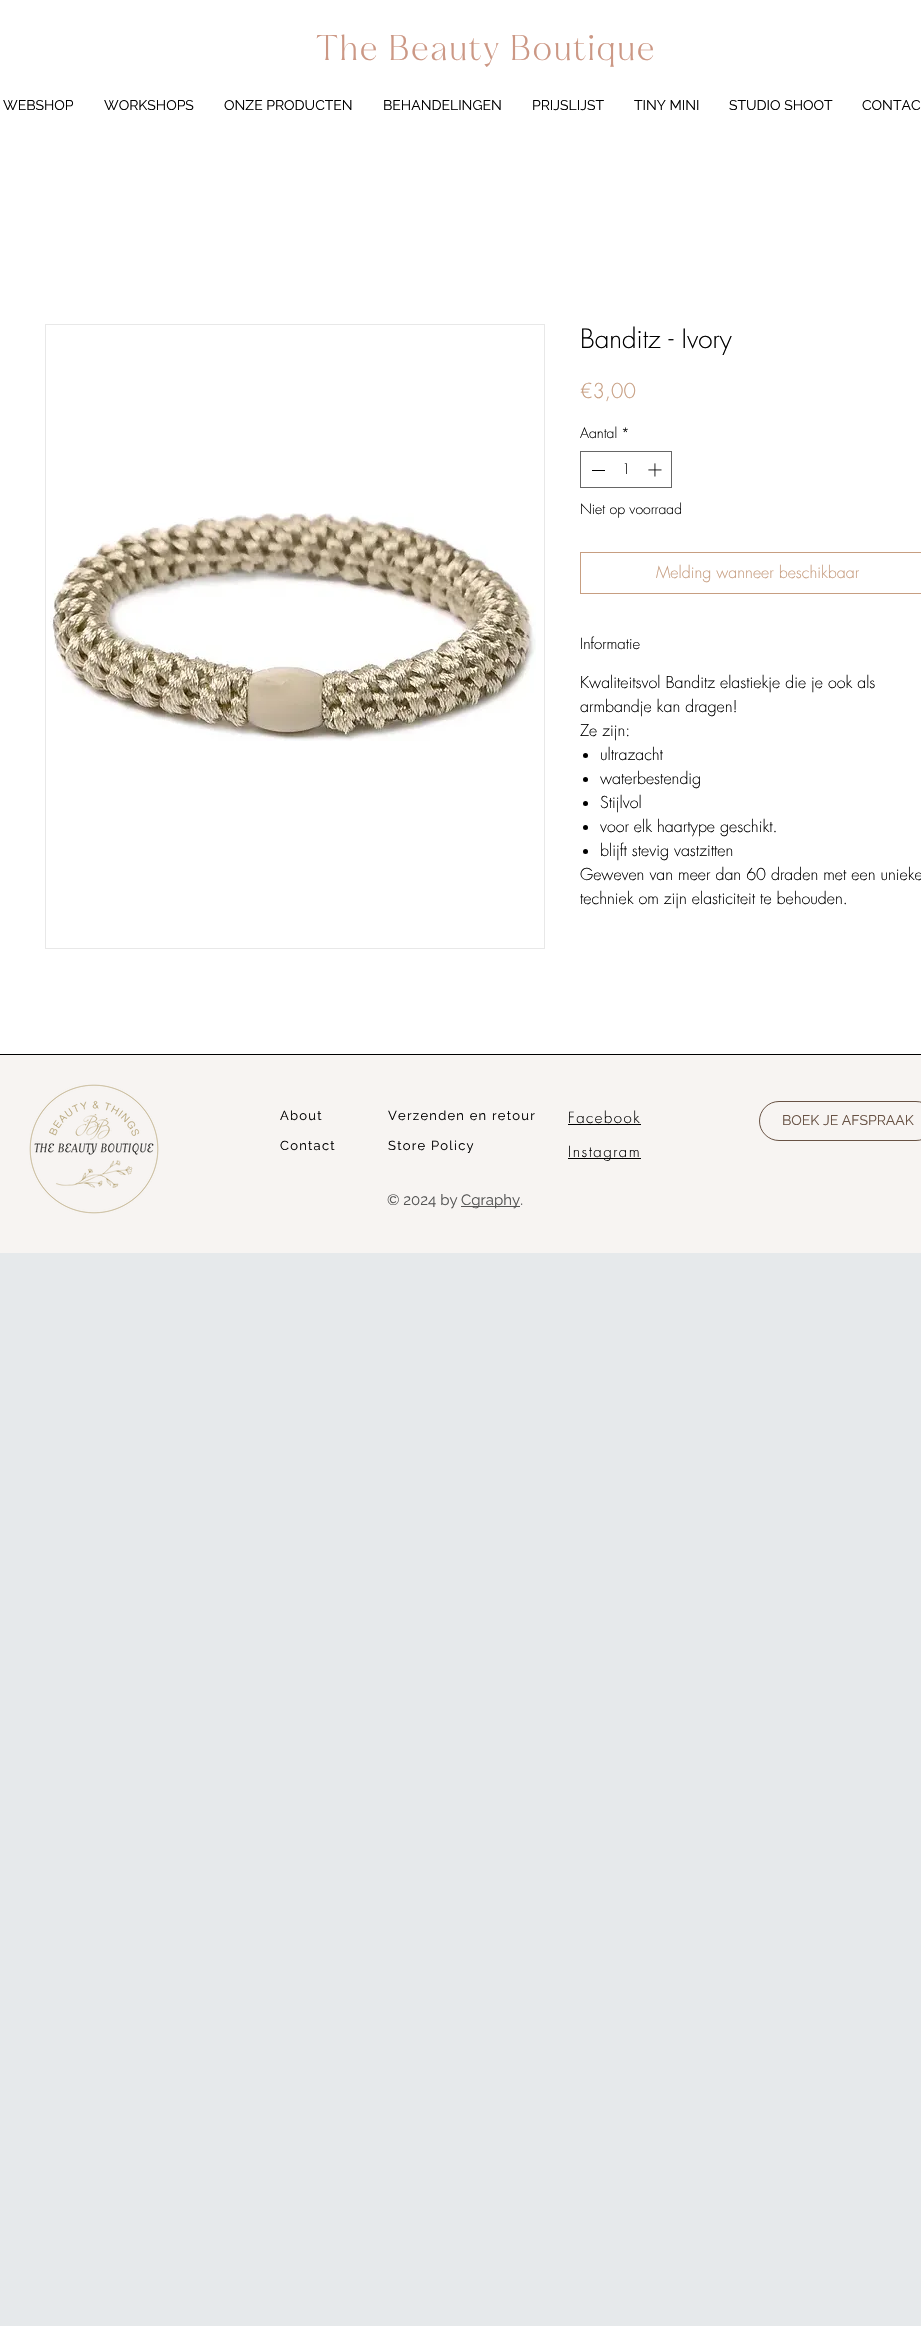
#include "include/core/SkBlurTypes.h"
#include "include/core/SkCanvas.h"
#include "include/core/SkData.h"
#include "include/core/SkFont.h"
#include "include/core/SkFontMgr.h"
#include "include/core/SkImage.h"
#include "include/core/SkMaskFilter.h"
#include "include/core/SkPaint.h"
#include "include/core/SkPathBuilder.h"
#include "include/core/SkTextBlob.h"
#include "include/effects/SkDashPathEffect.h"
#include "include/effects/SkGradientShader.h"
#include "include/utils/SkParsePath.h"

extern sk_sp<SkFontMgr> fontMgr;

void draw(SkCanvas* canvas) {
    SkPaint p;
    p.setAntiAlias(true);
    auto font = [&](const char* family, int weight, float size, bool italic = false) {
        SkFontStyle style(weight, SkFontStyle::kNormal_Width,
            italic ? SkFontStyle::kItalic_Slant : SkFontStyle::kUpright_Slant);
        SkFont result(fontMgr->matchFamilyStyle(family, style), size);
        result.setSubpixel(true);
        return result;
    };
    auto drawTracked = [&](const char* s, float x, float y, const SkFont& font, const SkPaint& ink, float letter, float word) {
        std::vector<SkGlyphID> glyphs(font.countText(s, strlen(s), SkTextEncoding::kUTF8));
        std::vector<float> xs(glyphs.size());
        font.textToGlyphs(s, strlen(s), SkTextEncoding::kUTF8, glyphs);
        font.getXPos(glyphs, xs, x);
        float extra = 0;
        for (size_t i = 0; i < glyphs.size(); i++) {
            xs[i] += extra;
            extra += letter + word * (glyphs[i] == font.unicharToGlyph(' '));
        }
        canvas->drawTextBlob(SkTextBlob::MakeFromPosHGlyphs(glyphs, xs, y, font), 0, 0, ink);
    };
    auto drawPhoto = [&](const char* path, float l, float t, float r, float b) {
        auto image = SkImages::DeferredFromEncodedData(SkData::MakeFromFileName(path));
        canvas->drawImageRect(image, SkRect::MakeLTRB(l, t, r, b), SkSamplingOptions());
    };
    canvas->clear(0xFFE6E9EB);
    p.setColor(0xFFFFFFFF);
    canvas->drawRect(SkRect::MakeLTRB(0, 0, 921, 1054), p);
    auto font1 = font("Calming", 400, 34);
    p.setColor(0xFFCC9885);
    drawTracked("The Beauty Boutique", 316, 60, font1, p, 1.75f, 0);
    auto font2 = font("Raleway", 400, 14);
    p.setColor(0xFF000000);
    {
        const struct { const char* s; float x, y; } items[] = {
            {"WEBSHOP", 3, 110},
            {"WORKSHOPS", 104, 110},
            {"ONZE PRODUCTEN", 224, 110},
            {"BEHANDELINGEN", 383, 110},
            {"PRIJSLIJST", 532, 110},
            {"TINY MINI", 634, 110},
            {"STUDIO SHOOT", 729, 110},
            {"CONTAC", 862, 110},
        };
        for (auto [s, x, y] : items) {
            canvas->drawString(s, x, y, font2, p);
        }
    }
    p.setStyle(SkPaint::kStroke_Style);
    p.setStrokeWidth(1);
    p.setColor(0xFFE8E8E8);
    canvas->drawRect(SkRect::MakeLTRB(45.5f, 324.5f, 544.5f, 948.5f), p);
    drawPhoto("media/1.png", 50, 513, 536, 741);
    auto font3 = font("futura", 300, 26);
    p.setStyle(SkPaint::kFill_Style);
    p.setColor(0xFF000000);
    canvas->drawString("Banditz - Ivory", 580, 348, font3, p);
    auto font4 = font("futura", 300, 20);
    p.setColor(0xFFC79E81);
    canvas->drawString("€3,00", 580, 398, font4, p);
    auto font5 = font("futura", 300, 14);
    p.setColor(0xFF000000);
    canvas->drawString("Aantal", 580, 438, font5, p);
    canvas->drawString("*", 621, 438, font5, p);
    p.setStyle(SkPaint::kStroke_Style);
    p.setColor(0xFF666666);
    canvas->drawRect(SkRect::MakeLTRB(580.5f, 451.5f, 671.5f, 487.5f), p);
    p.setStyle(SkPaint::kFill_Style);
    p.setColor(0xFF000000);
    canvas->drawRect(SkRect::MakeLTRB(592, 470, 605, 471), p);
    canvas->drawString("1", 622, 474, font5, p);
    drawPhoto("media/2.png", 648, 463, 662, 477);
    canvas->drawString("Niet op voorraad", 580, 514, font5, p);
    p.setStyle(SkPaint::kStroke_Style);
    p.setColor(0xFFC79E81);
    canvas->drawRect(SkRect::MakeLTRB(580.5f, 552.5f, 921.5f, 593.5f), p);
    auto font6 = font("futura", 300, 16);
    p.setStyle(SkPaint::kFill_Style);
    canvas->drawString("Melding wanneer beschikbaar", 656, 578, font6, p);
    auto font7 = font("futura", 300, 15);
    p.setColor(0xFF000000);
    canvas->drawString("Informatie", 580, 649, font7, p);
    {
        const struct { const char* s; float x, y; } items[] = {
            {"Kwaliteitsvol Banditz elastiekje die je ook als", 580, 688},
            {"armbandje kan dragen!", 580, 712},
            {"Ze zijn:", 580, 736},
        };
        for (auto [s, x, y] : items) {
            canvas->drawString(s, x, y, font6, p);
        }
    }
    canvas->drawCircle(585.5f, 755.5f, 2.5f, p);
    canvas->drawString("ultrazacht", 600, 760, font6, p);
    canvas->drawCircle(585.5f, 779.5f, 2.5f, p);
    canvas->drawString("waterbestendig", 600, 784, font6, p);
    canvas->drawCircle(585.5f, 803.5f, 2.5f, p);
    canvas->drawString("Stijlvol", 600, 808, font6, p);
    canvas->drawCircle(585.5f, 827.5f, 2.5f, p);
    canvas->drawString("voor elk haartype geschikt.", 600, 832, font6, p);
    canvas->drawCircle(585.5f, 851.5f, 2.5f, p);
    {
        const struct { const char* s; float x, y; } items[] = {
            {"blijft stevig vastzitten", 600, 856},
            {"Geweven van meer dan 60 draden met een unieke", 580, 880},
            {"techniek om zijn elasticiteit te behouden.", 580, 904},
        };
        for (auto [s, x, y] : items) {
            canvas->drawString(s, x, y, font6, p);
        }
    }
    p.setColor(0xFFF7F4F2);
    canvas->drawRect(SkRect::MakeLTRB(0, 1055, 921, 1253), p);
    p.setColor(0xFF000000);
    canvas->drawRect(SkRect::MakeLTRB(0, 1054, 921, 1055), p);
    drawPhoto("media/3.png", 29, 1084, 159, 1214);
    auto font8 = font("Raleway", 400, 13);
    {
        const struct { const char* s; float x, y; } items[] = {
            {"About", 280, 1120},
            {"Contact", 280, 1150},
            {"Verzenden en retour", 388, 1120},
            {"Store Policy", 388, 1150},
        };
        for (auto [s, x, y] : items) {
            drawTracked(s, x, y, font8, p, 1.25f, 0);
        }
    }
    drawTracked("Facebook", 568, 1123, font7, p, 1.5f, 0);
    canvas->drawRect(SkRect::MakeLTRB(568, 1124, 641, 1125), p);
    canvas->drawRect(SkRect::MakeLTRB(568, 1158, 641, 1159), p);
    drawTracked("Instagram", 568, 1157, font7, p, 1.5f, 0);
    p.setStyle(SkPaint::kStroke_Style);
    p.setColor(0xFF685244);
    canvas->drawRoundRect(SkRect::MakeLTRB(759.5f, 1101.5f, 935.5f, 1140.5f), 19.5f, 19.5f, p);
    p.setStyle(SkPaint::kFill_Style);
    canvas->drawString("BOEK JE AFSPRAAK", 782, 1125, font2, p);
    auto font9 = font("Raleway", 400, 15);
    p.setColor(0xFF555555);
    canvas->drawString("© 2024 by", 387, 1205, font9, p);
    canvas->drawRect(SkRect::MakeLTRB(461, 1206, 520, 1207), p);
    canvas->drawString("Cgraphy.", 461, 1205, font9, p);
}
